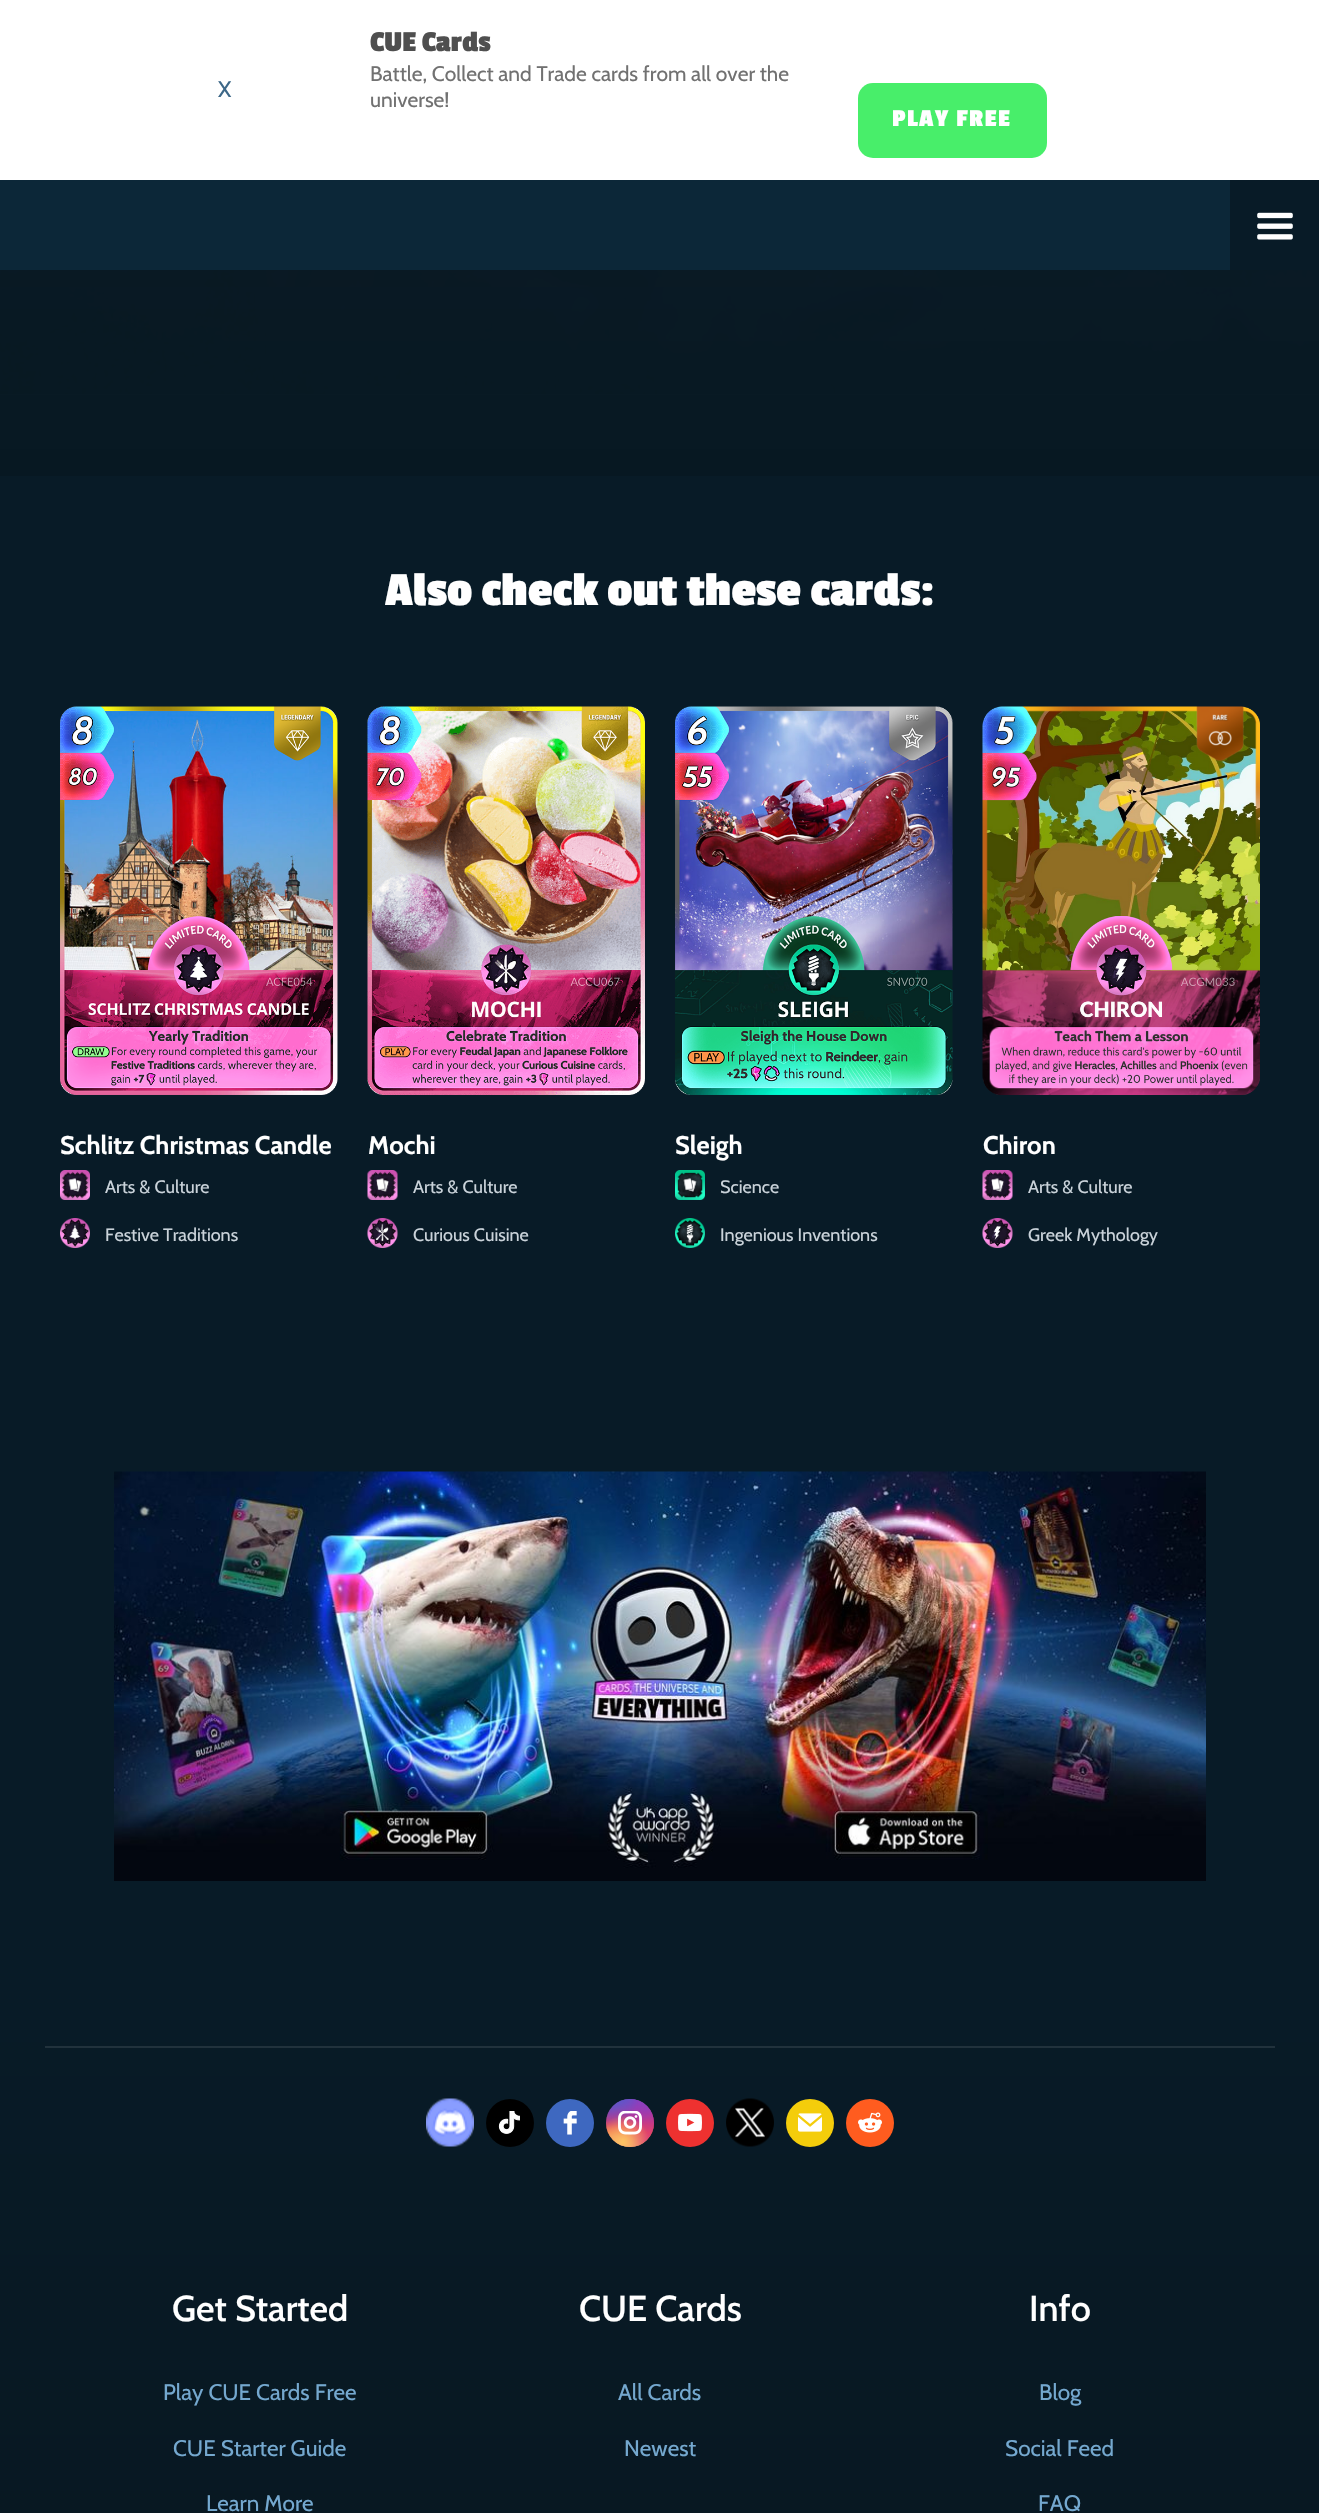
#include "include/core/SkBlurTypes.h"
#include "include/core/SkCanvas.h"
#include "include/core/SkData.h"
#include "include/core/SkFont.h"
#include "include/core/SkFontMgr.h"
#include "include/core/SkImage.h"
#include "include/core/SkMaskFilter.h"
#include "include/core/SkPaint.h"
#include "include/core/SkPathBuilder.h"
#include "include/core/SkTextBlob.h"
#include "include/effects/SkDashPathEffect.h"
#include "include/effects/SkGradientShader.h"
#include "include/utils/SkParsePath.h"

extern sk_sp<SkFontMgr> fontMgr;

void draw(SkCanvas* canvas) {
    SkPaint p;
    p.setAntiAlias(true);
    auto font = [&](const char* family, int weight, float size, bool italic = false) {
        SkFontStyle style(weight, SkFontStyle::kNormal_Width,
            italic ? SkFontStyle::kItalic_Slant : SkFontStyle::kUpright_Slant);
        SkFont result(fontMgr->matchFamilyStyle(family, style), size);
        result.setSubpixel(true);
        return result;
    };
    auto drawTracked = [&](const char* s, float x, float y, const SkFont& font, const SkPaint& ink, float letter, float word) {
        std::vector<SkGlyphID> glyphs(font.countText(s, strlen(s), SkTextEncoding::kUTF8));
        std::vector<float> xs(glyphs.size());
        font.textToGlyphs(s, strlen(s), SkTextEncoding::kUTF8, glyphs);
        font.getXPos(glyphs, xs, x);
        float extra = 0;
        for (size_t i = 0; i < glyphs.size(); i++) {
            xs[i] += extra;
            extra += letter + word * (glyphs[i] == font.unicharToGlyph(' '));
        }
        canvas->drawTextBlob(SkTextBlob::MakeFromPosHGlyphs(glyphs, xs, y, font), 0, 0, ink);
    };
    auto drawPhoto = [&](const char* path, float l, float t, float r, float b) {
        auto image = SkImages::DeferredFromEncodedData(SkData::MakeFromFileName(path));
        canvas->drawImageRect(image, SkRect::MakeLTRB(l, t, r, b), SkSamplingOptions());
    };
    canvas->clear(0xFFFFFFFF);
    auto font1 = font("Cabin", 400, 22.5f);
    p.setColor(0xFF3D6888);
    canvas->drawString("X", 218, 97, font1, p);
    auto font2 = font("Passion One", 700, 30);
    p.setColor(0xFF4F4F4F);
    canvas->drawString("CUE Cards", 370, 51, font2, p);
    auto font3 = font("Cabin", 400, 21);
    p.setColor(0xFF717171);
    canvas->drawString("Battle, Collect and Trade cards from all over the", 370, 81, font3, p);
    canvas->drawString("universe!", 370, 107, font3, p);
    p.setColor(0xFF48EE6A);
    canvas->drawRoundRect(SkRect::MakeLTRB(858, 83, 1047, 158), 15, 15, p);
    auto font4 = font("Passion One", 700, 25.5f);
    p.setColor(0xFFFFFFFF);
    drawTracked("PLAY FREE", 892, 126, font4, p, 1.5f, 0);
    p.setColor(0xFF0C2738);
    canvas->drawRect(SkRect::MakeLTRB(0, 180, 1230, 270), p);
    p.setColor(0xFF081B27);
    canvas->drawRect(SkRect::MakeLTRB(1230, 180, 1319, 270), p);
    drawPhoto("media/1.png", 1257, 212, 1293, 240);
    drawPhoto("media/2.png", 0, 270, 1319, 394);
    {
        const SkColor colors[] = {0xE0081B27, 0xFF071822};
        const float stops[] = {0, 1};
        const SkPoint ends[] = {{660, -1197}, {660, 476}};
        p.setShader(SkGradientShader::MakeLinear(ends, colors, stops, 2, SkTileMode::kClamp));
        p.setAlpha(255);
    }
    canvas->drawRect(SkRect::MakeLTRB(0, 270, 1319, 476), p);
    p.setShader(nullptr);
    p.setColor(0xFF081B27);
    canvas->drawRect(SkRect::MakeLTRB(0, 476, 1319, 1986), p);
    auto font5 = font("Passion One", 700, 49.5f);
    p.setColor(0xFFFFFFFF);
    canvas->drawString("Also check out these cards:", 385, 605, font5, p);
    drawPhoto("media/3.png", 60, 706, 338, 1095);
    auto font6 = font("Cabin", 700, 25.5f);
    canvas->drawString("Schlitz Christmas Candle", 60, 1154, font6, p);
    drawPhoto("media/4.png", 60, 1170, 90, 1200);
    auto font7 = font("Cabin", 400, 18);
    p.setColor(0xFFCAD3DA);
    canvas->drawString("Arts & Culture", 105, 1193, font7, p);
    drawPhoto("media/5.png", 60, 1218, 90, 1248);
    canvas->drawString("Festive Traditions", 105, 1241, font7, p);
    drawPhoto("media/6.png", 367, 706, 645, 1095);
    p.setColor(0xFFFFFFFF);
    canvas->drawString("Mochi", 368, 1154, font6, p);
    drawPhoto("media/7.png", 367, 1170, 398, 1200);
    p.setColor(0xFFCAD3DA);
    canvas->drawString("Arts & Culture", 413, 1193, font7, p);
    drawPhoto("media/8.png", 367, 1218, 398, 1248);
    canvas->drawString("Curious Cuisine", 413, 1241, font7, p);
    drawPhoto("media/9.png", 675, 706, 953, 1095);
    p.setColor(0xFFFFFFFF);
    canvas->drawString("Sleigh", 675, 1154, font6, p);
    drawPhoto("media/10.png", 675, 1170, 705, 1200);
    p.setColor(0xFFCAD3DA);
    canvas->drawString("Science", 720, 1193, font7, p);
    drawPhoto("media/11.png", 675, 1218, 705, 1248);
    canvas->drawString("Ingenious Inventions", 720, 1241, font7, p);
    drawPhoto("media/12.png", 982, 706, 1260, 1095);
    p.setColor(0xFFFFFFFF);
    canvas->drawString("Chiron", 983, 1154, font6, p);
    drawPhoto("media/7.png", 982, 1170, 1013, 1200);
    p.setColor(0xFFCAD3DA);
    canvas->drawString("Arts & Culture", 1028, 1193, font7, p);
    drawPhoto("media/13.png", 982, 1218, 1013, 1248);
    canvas->drawString("Greek Mythology", 1028, 1241, font7, p);
    drawPhoto("media/14.png", 114, 1471, 1206, 1881);
    {
        const SkColor colors[] = {0xFF081B27, 0xFF08161F};
        const float stops[] = {0, 1};
        const SkPoint ends[] = {{660, 1986}, {660, 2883}};
        p.setShader(SkGradientShader::MakeLinear(ends, colors, stops, 2, SkTileMode::kClamp));
        p.setAlpha(255);
    }
    canvas->drawRect(SkRect::MakeLTRB(0, 1986, 1319, 2513), p);
    p.setShader(nullptr);
    p.setColor(0xFF21323C);
    canvas->drawRect(SkRect::MakeLTRB(45, 2046, 1275, 2048), p);
    drawPhoto("media/15.png", 426, 2098, 474, 2147);
    p.setColor(0xFF000000);
    canvas->drawCircle(510, 2123, 24, p);
    drawPhoto("media/16.png", 498, 2111, 520, 2134);
    p.setColor(0xFF3E68C0);
    canvas->drawCircle(570, 2123, 24, p);
    drawPhoto("media/17.png", 563, 2111, 577, 2135);
    {
        const SkColor colors[] = {0xFF6559CA, 0xFFBC318F, 0xFFE33F5F, 0xFFF77638, 0xFFFEC66D};
        const float stops[] = {0, 0.3f, 0.5f, 0.7f, 1};
        const SkPoint ends[] = {{630, 2099}, {630, 2147}};
        p.setShader(SkGradientShader::MakeLinear(ends, colors, stops, 5, SkTileMode::kClamp));
        p.setAlpha(255);
    }
    canvas->drawCircle(630, 2123, 24, p);
    {
        const SkColor colors[] = {0xFFD9317A, 0x00D9317A};
        const float stops[] = {0, 1};
        p.setShader(SkGradientShader::MakeRadial({654, 2147}, 68, colors, stops, 2, SkTileMode::kClamp));
        p.setAlpha(255);
    }
    canvas->drawCircle(630, 2123, 24, p);
    {
        const SkColor colors[] = {0xFF893DC2, 0x00893DC2};
        const float stops[] = {0, 0.5f};
        SkMatrix m = SkMatrix::Translate(635, 2089).preScale(41, 81);
        p.setShader(SkGradientShader::MakeRadial({0, 0}, 1, colors, stops, 2, SkTileMode::kClamp, 0, &m));
        p.setAlpha(255);
    }
    canvas->drawCircle(630, 2123, 24, p);
    {
        const SkColor colors[] = {0xFF893DC2, 0x00893DC2};
        const float stops[] = {0, 0.5f};
        p.setShader(SkGradientShader::MakeRadial({654, 2099}, 68, colors, stops, 2, SkTileMode::kClamp));
        p.setAlpha(255);
    }
    canvas->drawCircle(630, 2123, 24, p);
    {
        const SkColor colors[] = {0xFF5258CF, 0x005258CF};
        const float stops[] = {0, 0.5f};
        SkMatrix m = SkMatrix::Translate(616, 2075).preScale(54, 102);
        p.setShader(SkGradientShader::MakeRadial({0, 0}, 1, colors, stops, 2, SkTileMode::kClamp, 0, &m));
        p.setAlpha(255);
    }
    canvas->drawCircle(630, 2123, 24, p);
    {
        const SkColor colors[] = {0xFF5258CF, 0x005258CF};
        const float stops[] = {0, 0.5f};
        SkMatrix m = SkMatrix::Translate(606, 2087).preScale(68, 85);
        p.setShader(SkGradientShader::MakeRadial({0, 0}, 1, colors, stops, 2, SkTileMode::kClamp, 0, &m));
        p.setAlpha(255);
    }
    canvas->drawCircle(630, 2123, 24, p);
    {
        const SkColor colors[] = {0xFFFEC564, 0x00FEC564};
        const float stops[] = {0, 0.5f};
        p.setShader(SkGradientShader::MakeRadial({606, 2166}, 83, colors, stops, 2, SkTileMode::kClamp));
        p.setAlpha(255);
    }
    canvas->drawCircle(630, 2123, 24, p);
    {
        const SkColor colors[] = {0xFFFEC564, 0x00FEC564};
        const float stops[] = {0, 0.5f};
        p.setShader(SkGradientShader::MakeRadial({623, 2142}, 53, colors, stops, 2, SkTileMode::kClamp));
        p.setAlpha(255);
    }
    canvas->drawCircle(630, 2123, 24, p);
    drawPhoto("media/18.png", 618, 2111, 642, 2135);
    p.setShader(nullptr);
    p.setColor(0xFFEE3130);
    canvas->drawCircle(690, 2123, 24, p);
    drawPhoto("media/19.png", 678, 2113, 702, 2132);
    drawPhoto("media/20.png", 726, 2098, 774, 2147);
    p.setColor(0xFFF4CD0B);
    canvas->drawCircle(810, 2123, 24, p);
    drawPhoto("media/21.png", 798, 2113, 822, 2132);
    p.setColor(0xFFFF5C1F);
    canvas->drawCircle(870, 2123, 24, p);
    drawPhoto("media/22.png", 858, 2112, 882, 2133);
    auto font8 = font("Cabin", 500, 36);
    p.setColor(0xFFFFFFFF);
    canvas->drawString("Get Started", 172, 2321, font8, p);
    p.setColor(0xFF74A8CF);
    {
        const struct { const char* s; float x, y; } items[] = {
            {"Play CUE Cards Free", 163, 2400},
            {"CUE Starter Guide", 173, 2456},
            {"Learn More", 206, 2511},
        };
        for (auto [s, x, y] : items) {
            canvas->drawString(s, x, y, font1, p);
        }
    }
    p.setColor(0xFFFFFFFF);
    canvas->drawString("CUE Cards", 579, 2321, font8, p);
    p.setColor(0xFF74A8CF);
    canvas->drawString("All Cards", 618, 2400, font1, p);
    canvas->drawString("Newest", 624, 2456, font1, p);
    p.setColor(0xFFFFFFFF);
    canvas->drawString("Info", 1029, 2321, font8, p);
    p.setColor(0xFF74A8CF);
    {
        const struct { const char* s; float x, y; } items[] = {
            {"Blog", 1039, 2400},
            {"Social Feed", 1005, 2456},
            {"FAQ", 1038, 2511},
        };
        for (auto [s, x, y] : items) {
            canvas->drawString(s, x, y, font1, p);
        }
    }
}
